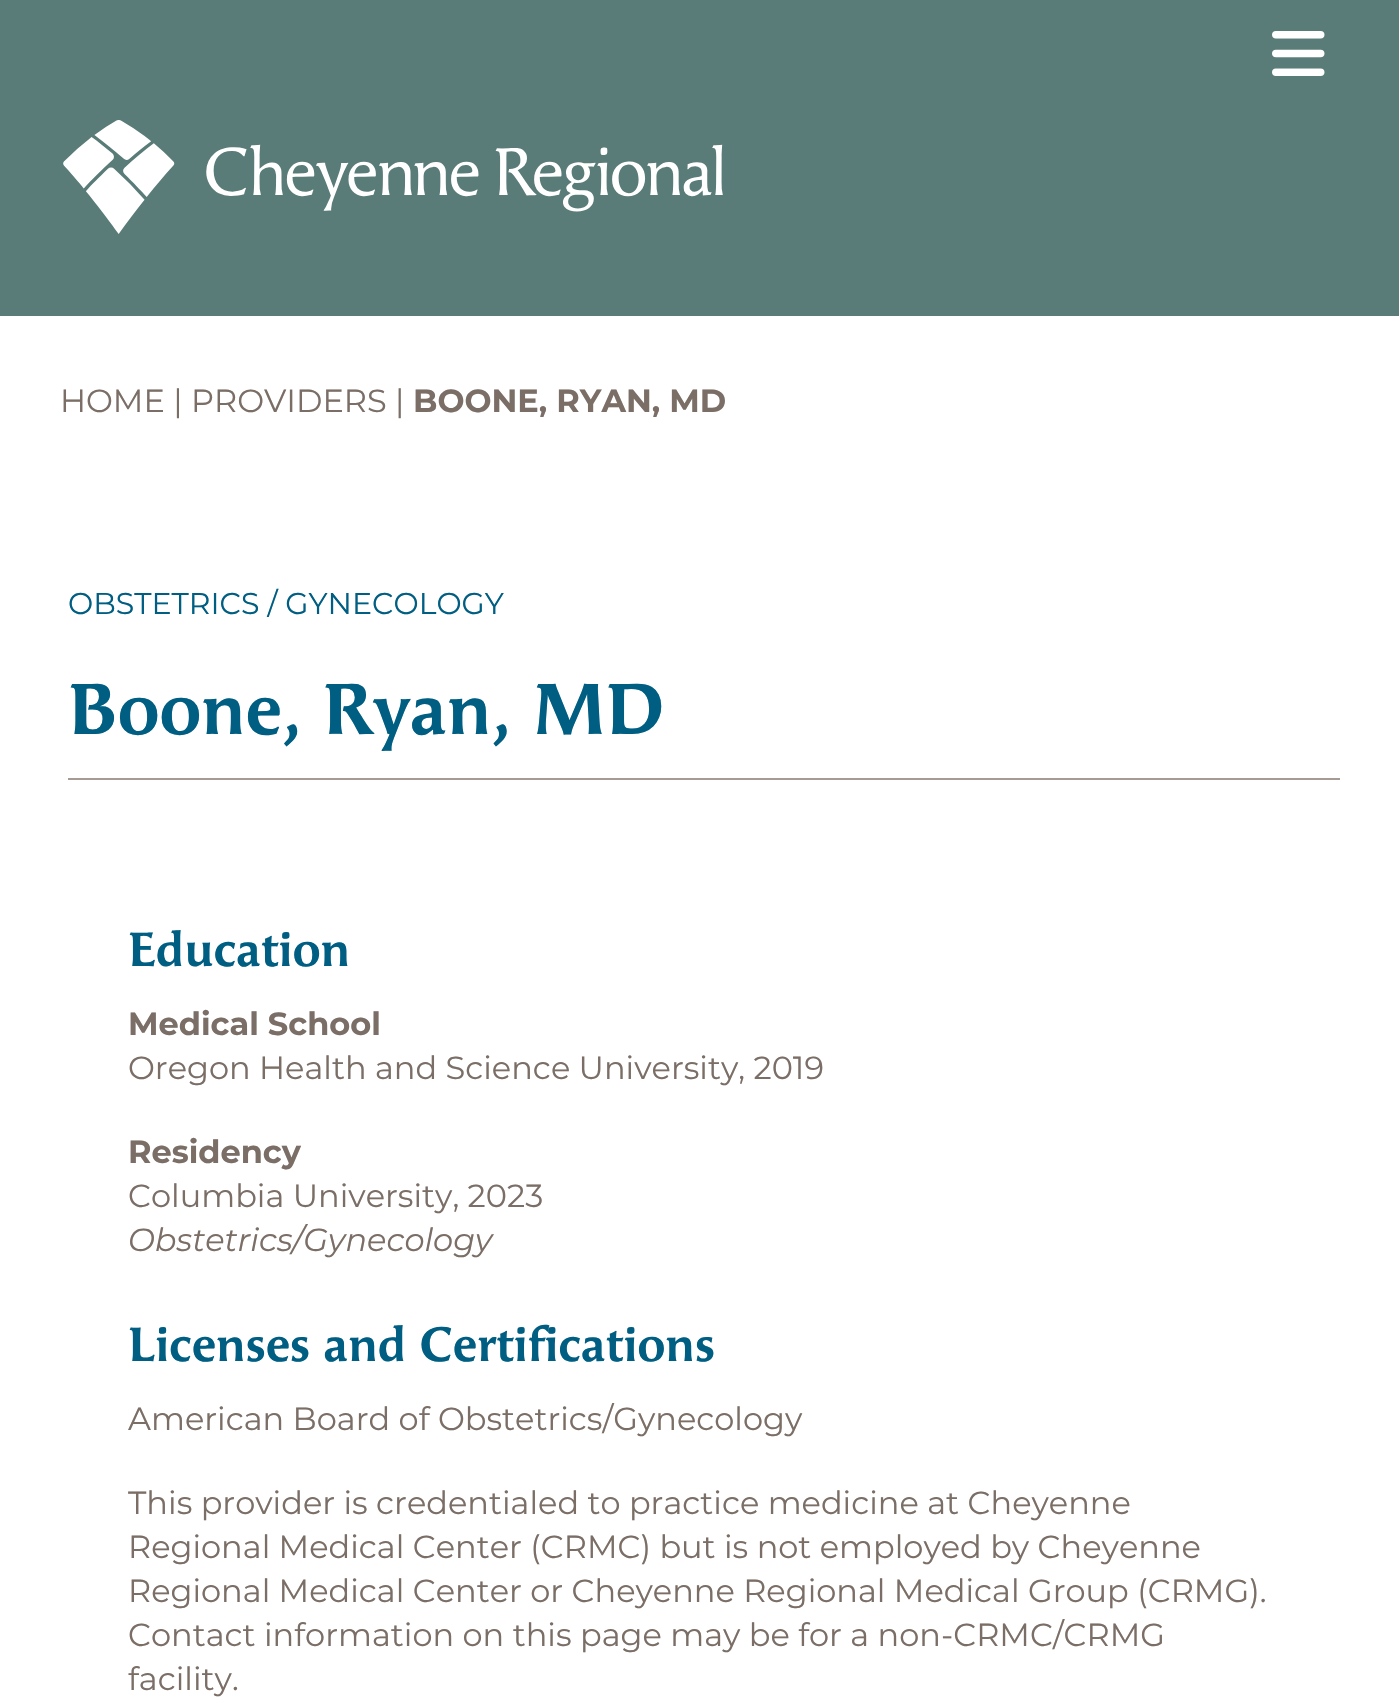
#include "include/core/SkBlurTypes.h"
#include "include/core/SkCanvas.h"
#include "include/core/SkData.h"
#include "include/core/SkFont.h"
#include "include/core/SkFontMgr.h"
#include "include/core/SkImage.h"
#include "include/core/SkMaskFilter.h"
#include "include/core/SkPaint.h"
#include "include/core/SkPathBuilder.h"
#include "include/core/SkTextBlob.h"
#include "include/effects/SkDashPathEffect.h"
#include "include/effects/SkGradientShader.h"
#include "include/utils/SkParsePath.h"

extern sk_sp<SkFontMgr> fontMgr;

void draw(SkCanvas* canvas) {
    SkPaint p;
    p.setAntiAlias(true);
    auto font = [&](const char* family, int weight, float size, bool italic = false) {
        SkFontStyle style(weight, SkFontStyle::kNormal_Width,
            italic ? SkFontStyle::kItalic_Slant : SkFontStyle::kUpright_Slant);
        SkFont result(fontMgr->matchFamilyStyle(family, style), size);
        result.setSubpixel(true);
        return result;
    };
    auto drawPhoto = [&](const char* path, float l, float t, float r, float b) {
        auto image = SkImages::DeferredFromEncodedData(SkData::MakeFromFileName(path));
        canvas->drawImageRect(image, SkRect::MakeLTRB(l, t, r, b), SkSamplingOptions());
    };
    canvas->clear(0xFFFFFFFF);
    p.setColor(0xFF5A7C79);
    canvas->drawRect(SkRect::MakeLTRB(0, 0, 1399, 316), p);
    drawPhoto("media/1.png", 1272, 31, 1325, 76);
    drawPhoto("media/2.png", 63, 120, 723, 234);
    auto font1 = font("Montserrat", 400, 32);
    p.setColor(0xFF7A6E66);
    canvas->drawString("HOME | PROVIDERS |", 60, 412, font1, p);
    auto font2 = font("Montserrat", 700, 32);
    canvas->drawString("BOONE, RYAN, MD", 413, 412, font2, p);
    auto font3 = font("Montserrat", 400, 30);
    p.setColor(0xFF005E82);
    canvas->drawString("OBSTETRICS / GYNECOLOGY", 68, 614, font3, p);
    auto font4 = font("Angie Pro", 700, 72);
    canvas->drawString("Boone, Ryan, MD", 68, 734, font4, p);
    p.setColor(0xFFA59B94);
    canvas->drawRect(SkRect::MakeLTRB(68, 778, 1340, 780), p);
    auto font5 = font("Angie Pro", 700, 48);
    p.setColor(0xFF005E82);
    canvas->drawString("Education", 128, 966, font5, p);
    p.setColor(0xFF7A6E66);
    canvas->drawString("Medical School", 128, 1035, font2, p);
    canvas->drawString("Oregon Health and Science University, 2019", 128, 1079, font1, p);
    canvas->drawString("Residency", 128, 1163, font2, p);
    canvas->drawString("Columbia University, 2023", 128, 1207, font1, p);
    auto font6 = font("Montserrat", 400, 32, true);
    canvas->drawString("Obstetrics/Gynecology", 128, 1251, font6, p);
    p.setColor(0xFF005E82);
    canvas->drawString("Licenses and Certifications", 128, 1361, font5, p);
    p.setColor(0xFF7A6E66);
    {
        const struct { const char* s; float x, y; } items[] = {
            {"American Board of Obstetrics/Gynecology", 128, 1430},
            {"This provider is credentialed to practice medicine at Cheyenne", 128, 1514},
            {"Regional Medical Center (CRMC) but is not employed by Cheyenne", 128, 1558},
            {"Regional Medical Center or Cheyenne Regional Medical Group (CRMG).", 128, 1602},
            {"Contact information on this page may be for a non-CRMC/CRMG", 128, 1646},
            {"facility.", 128, 1690},
        };
        for (auto [s, x, y] : items) {
            canvas->drawString(s, x, y, font1, p);
        }
    }
}
